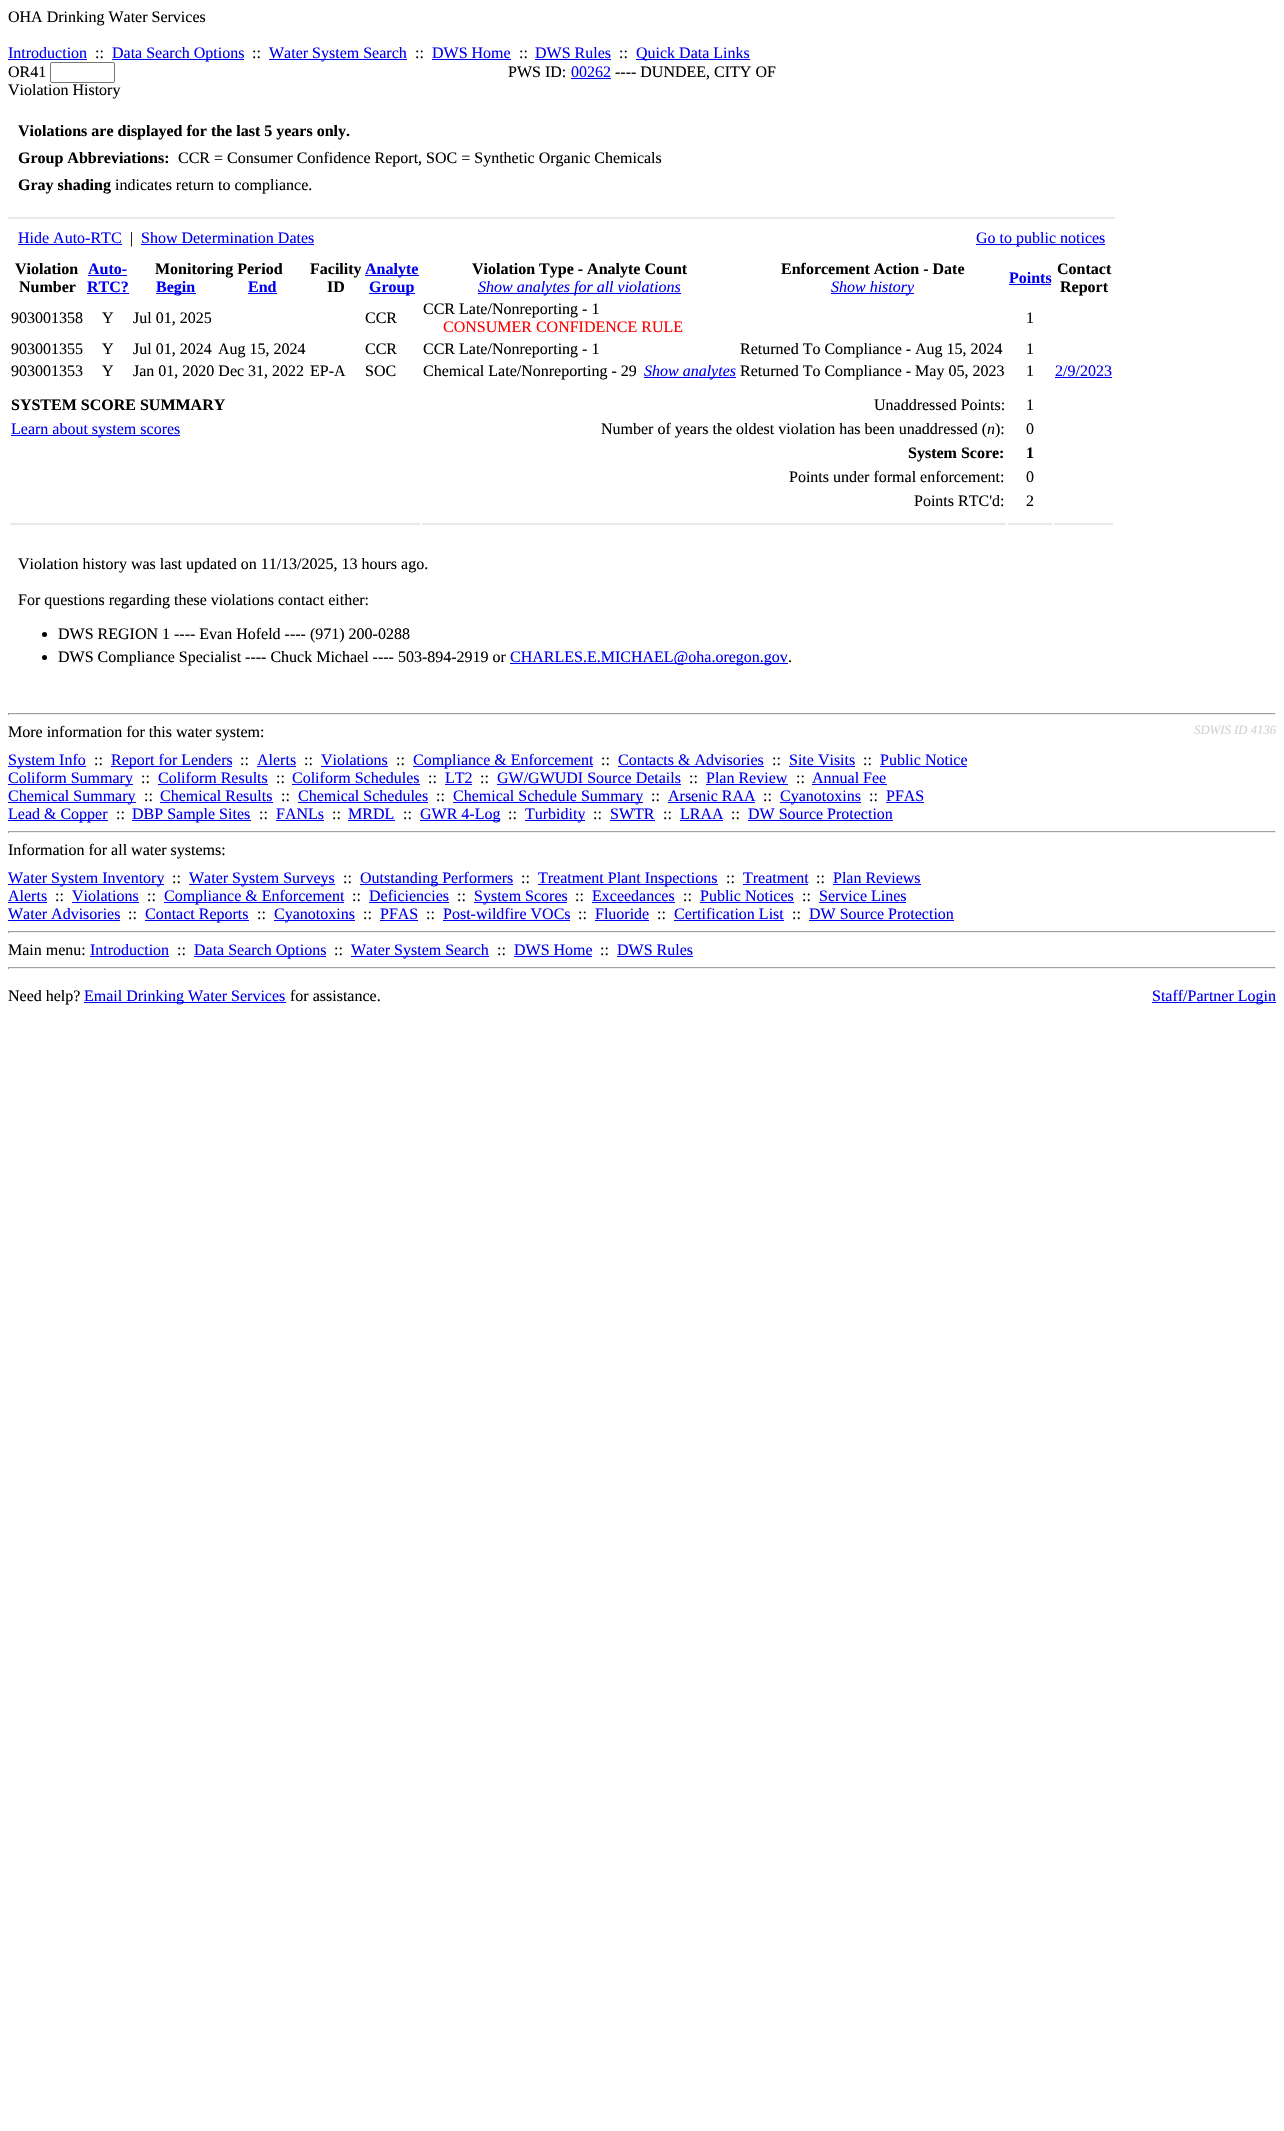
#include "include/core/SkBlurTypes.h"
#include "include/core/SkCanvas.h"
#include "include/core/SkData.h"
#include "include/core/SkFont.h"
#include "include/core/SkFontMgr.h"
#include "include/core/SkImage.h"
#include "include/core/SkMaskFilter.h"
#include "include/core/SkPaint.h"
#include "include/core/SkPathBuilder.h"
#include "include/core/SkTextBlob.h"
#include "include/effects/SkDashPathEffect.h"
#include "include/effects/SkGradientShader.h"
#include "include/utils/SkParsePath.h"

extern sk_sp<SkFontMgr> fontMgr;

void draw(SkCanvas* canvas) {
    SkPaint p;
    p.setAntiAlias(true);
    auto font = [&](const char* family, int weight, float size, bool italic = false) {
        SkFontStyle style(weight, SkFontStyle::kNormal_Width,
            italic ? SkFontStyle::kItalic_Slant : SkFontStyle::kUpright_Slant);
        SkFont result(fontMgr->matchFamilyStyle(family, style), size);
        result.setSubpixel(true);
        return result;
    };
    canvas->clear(0xFFFFFFFF);
    auto font1 = font("Liberation Serif", 400, 16);
    p.setColor(0xFF000000);
    canvas->drawString("OHA Drinking Water Services", 8, 22, font1, p);
    p.setColor(0xFF0000EE);
    canvas->drawString("Introduction", 8, 58, font1, p);
    canvas->drawRect(SkRect::MakeLTRB(8, 59, 87, 60), p);
    p.setColor(0xFF000000);
    canvas->drawString("::", 95, 58, font1, p);
    p.setColor(0xFF0000EE);
    canvas->drawRect(SkRect::MakeLTRB(112, 59, 244, 60), p);
    canvas->drawString("Data Search Options", 112, 58, font1, p);
    p.setColor(0xFF000000);
    canvas->drawString("::", 252, 58, font1, p);
    p.setColor(0xFF0000EE);
    canvas->drawRect(SkRect::MakeLTRB(269, 59, 407, 60), p);
    canvas->drawString("Water System Search", 269, 58, font1, p);
    p.setColor(0xFF000000);
    canvas->drawString("::", 415, 58, font1, p);
    p.setColor(0xFF0000EE);
    canvas->drawString("DWS Home", 432, 58, font1, p);
    canvas->drawRect(SkRect::MakeLTRB(432, 59, 511, 60), p);
    p.setColor(0xFF000000);
    canvas->drawString("::", 519, 58, font1, p);
    p.setColor(0xFF0000EE);
    canvas->drawString("DWS Rules", 535, 58, font1, p);
    canvas->drawRect(SkRect::MakeLTRB(535, 59, 611, 60), p);
    p.setColor(0xFF000000);
    canvas->drawString("::", 619, 58, font1, p);
    p.setColor(0xFF0000EE);
    canvas->drawRect(SkRect::MakeLTRB(636, 59, 750, 60), p);
    canvas->drawString("Quick Data Links", 636, 58, font1, p);
    p.setColor(0xFF000000);
    canvas->drawString("OR41", 8, 77, font1, p);
    p.setStyle(SkPaint::kStroke_Style);
    p.setStrokeWidth(1);
    p.setColor(0xFF767676);
    canvas->drawRoundRect(SkRect::MakeLTRB(50.5f, 62.5f, 114.5f, 82.5f), 1.5f, 1.5f, p);
    p.setStyle(SkPaint::kFill_Style);
    p.setColor(0xFF000000);
    canvas->drawString("PWS ID:", 508, 77, font1, p);
    p.setColor(0xFF0000EE);
    canvas->drawString("00262", 571, 77, font1, p);
    canvas->drawRect(SkRect::MakeLTRB(571, 78, 611, 79), p);
    p.setColor(0xFF000000);
    canvas->drawString("---- DUNDEE, CITY OF", 615, 77, font1, p);
    canvas->drawString("Violation History", 8, 95, font1, p);
    auto font2 = font("Liberation Serif", 700, 16);
    canvas->drawString("Violations are displayed for the last 5 years only.", 18, 136, font2, p);
    canvas->drawString("Group Abbreviations:", 18, 163, font2, p);
    canvas->drawString("CCR = Consumer Confidence Report, SOC = Synthetic Organic Chemicals", 178, 163, font1, p);
    canvas->drawString("Gray shading", 18, 190, font2, p);
    canvas->drawString("indicates return to compliance.", 115, 190, font1, p);
    p.setColor(0xFFE8E8E8);
    canvas->drawRect(SkRect::MakeLTRB(8, 217, 1115, 219), p);
    p.setColor(0xFF0000EE);
    canvas->drawString("Hide Auto-RTC", 18, 243, font1, p);
    canvas->drawRect(SkRect::MakeLTRB(18, 244, 122, 245), p);
    p.setColor(0xFF000000);
    canvas->drawString("|", 130, 243, font1, p);
    p.setColor(0xFF0000EE);
    canvas->drawString("Show Determination Dates", 141, 243, font1, p);
    canvas->drawRect(SkRect::MakeLTRB(141, 244, 314, 245), p);
    canvas->drawRect(SkRect::MakeLTRB(976, 244, 1105, 245), p);
    canvas->drawString("Go to public notices", 976, 243, font1, p);
    p.setColor(0xFF000000);
    canvas->drawString("Violation", 15, 274, font2, p);
    canvas->drawString("Number", 19, 292, font2, p);
    p.setColor(0xFF0000EE);
    canvas->drawString("Auto-", 88, 274, font2, p);
    canvas->drawRect(SkRect::MakeLTRB(88, 275, 127, 276), p);
    canvas->drawString("RTC?", 87, 292, font2, p);
    canvas->drawRect(SkRect::MakeLTRB(87, 293, 129, 294), p);
    p.setColor(0xFF000000);
    canvas->drawString("Monitoring Period", 155, 274, font2, p);
    p.setColor(0xFF0000EE);
    canvas->drawRect(SkRect::MakeLTRB(156, 293, 196, 294), p);
    canvas->drawString("Begin", 156, 292, font2, p);
    canvas->drawString("End", 248, 292, font2, p);
    canvas->drawRect(SkRect::MakeLTRB(248, 293, 277, 294), p);
    p.setColor(0xFF000000);
    canvas->drawString("Facility", 310, 274, font2, p);
    canvas->drawString("ID", 327, 292, font2, p);
    p.setColor(0xFF0000EE);
    canvas->drawRect(SkRect::MakeLTRB(365, 275, 419, 276), p);
    canvas->drawString("Analyte", 365, 274, font2, p);
    canvas->drawRect(SkRect::MakeLTRB(369, 293, 415, 294), p);
    canvas->drawString("Group", 369, 292, font2, p);
    p.setColor(0xFF000000);
    canvas->drawString("Violation Type - Analyte Count", 472, 274, font2, p);
    p.setColor(0xFF0000EE);
    canvas->drawRect(SkRect::MakeLTRB(478, 293, 681, 294), p);
    auto font3 = font("Liberation Serif", 400, 16, true);
    canvas->drawString("Show analytes for all violations", 478, 292, font3, p);
    p.setColor(0xFF000000);
    canvas->drawString("Enforcement Action - Date", 781, 274, font2, p);
    p.setColor(0xFF0000EE);
    canvas->drawRect(SkRect::MakeLTRB(831, 293, 914, 294), p);
    canvas->drawString("Show history", 831, 292, font3, p);
    canvas->drawString("Points", 1009, 283, font2, p);
    canvas->drawRect(SkRect::MakeLTRB(1009, 284, 1051, 285), p);
    p.setColor(0xFF000000);
    canvas->drawString("Contact", 1057, 274, font2, p);
    canvas->drawString("Report", 1060, 292, font2, p);
    {
        const struct { const char* s; float x, y; } items[] = {
            {"903001358", 11, 323},
            {"Y", 102, 323},
            {"Jul 01, 2025", 133, 323},
            {"CCR", 365, 323},
            {"CCR Late/Nonreporting - 1", 423, 314},
        };
        for (auto [s, x, y] : items) {
            canvas->drawString(s, x, y, font1, p);
        }
    }
    p.setColor(0xFFFF0000);
    canvas->drawString("CONSUMER CONFIDENCE RULE", 443, 332, font1, p);
    p.setColor(0xFF000000);
    {
        const struct { const char* s; float x, y; } items[] = {
            {"1", 1026, 323},
            {"903001355", 11, 354},
            {"Y", 102, 354},
            {"Jul 01, 2024", 133, 354},
            {"Aug 15, 2024", 218, 354},
            {"CCR", 365, 354},
            {"CCR Late/Nonreporting - 1", 423, 354},
            {"Returned To Compliance - Aug 15, 2024", 740, 354},
            {"1", 1026, 354},
            {"903001353", 11, 376},
            {"Y", 102, 376},
            {"Jan 01, 2020 Dec 31, 2022", 133, 376},
            {"EP-A", 310, 376},
            {"SOC", 365, 376},
            {"Chemical Late/Nonreporting - 29", 423, 376},
        };
        for (auto [s, x, y] : items) {
            canvas->drawString(s, x, y, font1, p);
        }
    }
    p.setColor(0xFF0000EE);
    canvas->drawRect(SkRect::MakeLTRB(644, 377, 736, 378), p);
    canvas->drawString("Show analytes", 644, 376, font3, p);
    p.setColor(0xFF000000);
    canvas->drawString("Returned To Compliance - May 05, 2023", 740, 376, font1, p);
    canvas->drawString("1", 1026, 376, font1, p);
    p.setColor(0xFF0000EE);
    canvas->drawString("2/9/2023", 1055, 376, font1, p);
    canvas->drawRect(SkRect::MakeLTRB(1055, 377, 1112, 378), p);
    p.setColor(0xFFE8E8E8);
    canvas->drawRect(SkRect::MakeLTRB(10, 523, 420, 525), p);
    p.setColor(0xFF000000);
    canvas->drawString("SYSTEM SCORE SUMMARY", 11, 410, font2, p);
    p.setColor(0xFF0000EE);
    canvas->drawRect(SkRect::MakeLTRB(11, 435, 180, 436), p);
    canvas->drawString("Learn about system scores", 11, 434, font1, p);
    p.setColor(0xFFE8E8E8);
    canvas->drawRect(SkRect::MakeLTRB(422, 523, 1006, 525), p);
    p.setColor(0xFF000000);
    canvas->drawString("Unaddressed Points:", 874, 410, font1, p);
    canvas->drawString("Number of years the oldest violation has been unaddressed (", 601, 434, font1, p);
    canvas->drawString("n", 987, 434, font3, p);
    canvas->drawString("):", 995, 434, font1, p);
    canvas->drawString("System Score:", 908, 458, font2, p);
    canvas->drawString("Points under formal enforcement:", 789, 482, font1, p);
    canvas->drawString("Points RTC'd:", 914, 506, font1, p);
    p.setColor(0xFFE8E8E8);
    canvas->drawRect(SkRect::MakeLTRB(1008, 523, 1052, 525), p);
    p.setColor(0xFF000000);
    canvas->drawString("1", 1026, 410, font1, p);
    canvas->drawString("0", 1026, 434, font1, p);
    canvas->drawString("1", 1026, 458, font2, p);
    canvas->drawString("0", 1026, 482, font1, p);
    canvas->drawString("2", 1026, 506, font1, p);
    p.setColor(0xFFE8E8E8);
    canvas->drawRect(SkRect::MakeLTRB(1054, 523, 1113, 525), p);
    p.setColor(0xFF000000);
    canvas->drawString("Violation history was last updated on 11/13/2025, 13 hours ago.", 18, 569, font1, p);
    canvas->drawString("For questions regarding these violations contact either:", 18, 605, font1, p);
    canvas->drawCircle(44.5f, 634.5f, 2.5f, p);
    canvas->drawString("DWS REGION 1 ---- Evan Hofeld ---- (971) 200-0288", 58, 639, font1, p);
    canvas->drawCircle(44.5f, 657.5f, 2.5f, p);
    canvas->drawString("DWS Compliance Specialist ---- Chuck Michael ---- 503-894-2919 or", 58, 662, font1, p);
    p.setColor(0xFF0000EE);
    canvas->drawRect(SkRect::MakeLTRB(510, 663, 788, 664), p);
    canvas->drawString("CHARLES.E.MICHAEL@oha.oregon.gov", 510, 662, font1, p);
    p.setColor(0xFF000000);
    canvas->drawString(".", 788, 662, font1, p);
    {
        const struct { float l, t, r, b; SkColor color; } items[] = {
            {8, 713, 1276, 714, 0xFF9F9F9F},
            {1275, 713, 1276, 715, 0xFFEEEEEE},
            {8, 714, 1276, 715, 0xFFEEEEEE},
            {8, 713, 9, 715, 0xFF9F9F9F},
        };
        for (auto [l, t, r, b, color] : items) {
            p.setColor(color);
            canvas->drawRect(SkRect::MakeLTRB(l, t, r, b), p);
        }
    }
    p.setColor(0xFF000000);
    canvas->drawString("More information for this water system:", 8, 737, font1, p);
    auto font4 = font("Liberation Serif", 400, 12.75f, true);
    p.setColor(0xFFD3D3D3);
    canvas->drawString("SDWIS ID 4136", 1194, 734, font4, p);
    p.setColor(0xFF0000EE);
    canvas->drawRect(SkRect::MakeLTRB(8, 766, 86, 767), p);
    canvas->drawString("System Info", 8, 765, font1, p);
    p.setColor(0xFF000000);
    canvas->drawString("::", 94, 765, font1, p);
    p.setColor(0xFF0000EE);
    canvas->drawRect(SkRect::MakeLTRB(111, 766, 232, 767), p);
    canvas->drawString("Report for Lenders", 111, 765, font1, p);
    p.setColor(0xFF000000);
    canvas->drawString("::", 240, 765, font1, p);
    p.setColor(0xFF0000EE);
    canvas->drawString("Alerts", 257, 765, font1, p);
    canvas->drawRect(SkRect::MakeLTRB(257, 766, 296, 767), p);
    p.setColor(0xFF000000);
    canvas->drawString("::", 304, 765, font1, p);
    p.setColor(0xFF0000EE);
    canvas->drawString("Violations", 321, 765, font1, p);
    canvas->drawRect(SkRect::MakeLTRB(321, 766, 388, 767), p);
    p.setColor(0xFF000000);
    canvas->drawString("::", 396, 765, font1, p);
    p.setColor(0xFF0000EE);
    canvas->drawRect(SkRect::MakeLTRB(413, 766, 593, 767), p);
    canvas->drawString("Compliance & Enforcement", 413, 765, font1, p);
    p.setColor(0xFF000000);
    canvas->drawString("::", 601, 765, font1, p);
    p.setColor(0xFF0000EE);
    canvas->drawString("Contacts & Advisories", 618, 765, font1, p);
    canvas->drawRect(SkRect::MakeLTRB(618, 766, 764, 767), p);
    p.setColor(0xFF000000);
    canvas->drawString("::", 772, 765, font1, p);
    p.setColor(0xFF0000EE);
    canvas->drawString("Site Visits", 789, 765, font1, p);
    canvas->drawRect(SkRect::MakeLTRB(789, 766, 855, 767), p);
    p.setColor(0xFF000000);
    canvas->drawString("::", 863, 765, font1, p);
    p.setColor(0xFF0000EE);
    canvas->drawString("Public Notice", 880, 765, font1, p);
    canvas->drawRect(SkRect::MakeLTRB(880, 766, 967, 767), p);
    canvas->drawRect(SkRect::MakeLTRB(8, 784, 133, 785), p);
    canvas->drawString("Coliform Summary", 8, 783, font1, p);
    p.setColor(0xFF000000);
    canvas->drawString("::", 141, 783, font1, p);
    p.setColor(0xFF0000EE);
    canvas->drawString("Coliform Results", 158, 783, font1, p);
    canvas->drawRect(SkRect::MakeLTRB(158, 784, 268, 785), p);
    p.setColor(0xFF000000);
    canvas->drawString("::", 276, 783, font1, p);
    p.setColor(0xFF0000EE);
    canvas->drawString("Coliform Schedules", 292, 783, font1, p);
    canvas->drawRect(SkRect::MakeLTRB(292, 784, 420, 785), p);
    p.setColor(0xFF000000);
    canvas->drawString("::", 428, 783, font1, p);
    p.setColor(0xFF0000EE);
    canvas->drawString("LT2", 445, 783, font1, p);
    canvas->drawRect(SkRect::MakeLTRB(445, 784, 472, 785), p);
    p.setColor(0xFF000000);
    canvas->drawString("::", 480, 783, font1, p);
    p.setColor(0xFF0000EE);
    canvas->drawString("GW/GWUDI Source Details", 497, 783, font1, p);
    canvas->drawRect(SkRect::MakeLTRB(497, 784, 681, 785), p);
    p.setColor(0xFF000000);
    canvas->drawString("::", 689, 783, font1, p);
    p.setColor(0xFF0000EE);
    canvas->drawString("Plan Review", 706, 783, font1, p);
    canvas->drawRect(SkRect::MakeLTRB(706, 784, 788, 785), p);
    p.setColor(0xFF000000);
    canvas->drawString("::", 796, 783, font1, p);
    p.setColor(0xFF0000EE);
    canvas->drawString("Annual Fee", 812, 783, font1, p);
    canvas->drawRect(SkRect::MakeLTRB(812, 784, 887, 785), p);
    canvas->drawRect(SkRect::MakeLTRB(8, 802, 136, 803), p);
    canvas->drawString("Chemical Summary", 8, 801, font1, p);
    p.setColor(0xFF000000);
    canvas->drawString("::", 144, 801, font1, p);
    p.setColor(0xFF0000EE);
    canvas->drawString("Chemical Results", 160, 801, font1, p);
    canvas->drawRect(SkRect::MakeLTRB(160, 802, 273, 803), p);
    p.setColor(0xFF000000);
    canvas->drawString("::", 281, 801, font1, p);
    p.setColor(0xFF0000EE);
    canvas->drawString("Chemical Schedules", 298, 801, font1, p);
    canvas->drawRect(SkRect::MakeLTRB(298, 802, 428, 803), p);
    p.setColor(0xFF000000);
    canvas->drawString("::", 436, 801, font1, p);
    p.setColor(0xFF0000EE);
    canvas->drawRect(SkRect::MakeLTRB(453, 802, 643, 803), p);
    canvas->drawString("Chemical Schedule Summary", 453, 801, font1, p);
    p.setColor(0xFF000000);
    canvas->drawString("::", 651, 801, font1, p);
    p.setColor(0xFF0000EE);
    canvas->drawString("Arsenic RAA", 668, 801, font1, p);
    canvas->drawRect(SkRect::MakeLTRB(668, 802, 755, 803), p);
    p.setColor(0xFF000000);
    canvas->drawString("::", 763, 801, font1, p);
    p.setColor(0xFF0000EE);
    canvas->drawRect(SkRect::MakeLTRB(780, 802, 861, 803), p);
    canvas->drawString("Cyanotoxins", 780, 801, font1, p);
    p.setColor(0xFF000000);
    canvas->drawString("::", 869, 801, font1, p);
    p.setColor(0xFF0000EE);
    canvas->drawString("PFAS", 886, 801, font1, p);
    canvas->drawRect(SkRect::MakeLTRB(886, 802, 924, 803), p);
    canvas->drawRect(SkRect::MakeLTRB(8, 820, 108, 821), p);
    canvas->drawString("Lead & Copper", 8, 819, font1, p);
    p.setColor(0xFF000000);
    canvas->drawString("::", 116, 819, font1, p);
    p.setColor(0xFF0000EE);
    canvas->drawRect(SkRect::MakeLTRB(132, 820, 251, 821), p);
    canvas->drawString("DBP Sample Sites", 132, 819, font1, p);
    p.setColor(0xFF000000);
    canvas->drawString("::", 259, 819, font1, p);
    p.setColor(0xFF0000EE);
    canvas->drawString("FANLs", 276, 819, font1, p);
    canvas->drawRect(SkRect::MakeLTRB(276, 820, 324, 821), p);
    p.setColor(0xFF000000);
    canvas->drawString("::", 332, 819, font1, p);
    p.setColor(0xFF0000EE);
    canvas->drawString("MRDL", 348, 819, font1, p);
    canvas->drawRect(SkRect::MakeLTRB(348, 820, 395, 821), p);
    p.setColor(0xFF000000);
    canvas->drawString("::", 403, 819, font1, p);
    p.setColor(0xFF0000EE);
    canvas->drawRect(SkRect::MakeLTRB(420, 820, 500, 821), p);
    canvas->drawString("GWR 4-Log", 420, 819, font1, p);
    p.setColor(0xFF000000);
    canvas->drawString("::", 508, 819, font1, p);
    p.setColor(0xFF0000EE);
    canvas->drawRect(SkRect::MakeLTRB(525, 820, 585, 821), p);
    canvas->drawString("Turbidity", 525, 819, font1, p);
    p.setColor(0xFF000000);
    canvas->drawString("::", 593, 819, font1, p);
    p.setColor(0xFF0000EE);
    canvas->drawString("SWTR", 610, 819, font1, p);
    canvas->drawRect(SkRect::MakeLTRB(610, 820, 655, 821), p);
    p.setColor(0xFF000000);
    canvas->drawString("::", 663, 819, font1, p);
    p.setColor(0xFF0000EE);
    canvas->drawString("LRAA", 680, 819, font1, p);
    canvas->drawRect(SkRect::MakeLTRB(680, 820, 723, 821), p);
    p.setColor(0xFF000000);
    canvas->drawString("::", 731, 819, font1, p);
    p.setColor(0xFF0000EE);
    canvas->drawString("DW Source Protection", 748, 819, font1, p);
    {
        const struct { float l, t, r, b; SkColor color; } items[] = {
            {748, 820, 893, 821, 0xFF0000EE},
            {8, 831, 1276, 832, 0xFF9F9F9F},
            {1275, 831, 1276, 833, 0xFFEEEEEE},
            {8, 832, 1276, 833, 0xFFEEEEEE},
            {8, 831, 9, 833, 0xFF9F9F9F},
        };
        for (auto [l, t, r, b, color] : items) {
            p.setColor(color);
            canvas->drawRect(SkRect::MakeLTRB(l, t, r, b), p);
        }
    }
    p.setColor(0xFF000000);
    canvas->drawString("Information for all water systems:", 8, 855, font1, p);
    p.setColor(0xFF0000EE);
    canvas->drawRect(SkRect::MakeLTRB(8, 884, 164, 885), p);
    canvas->drawString("Water System Inventory", 8, 883, font1, p);
    p.setColor(0xFF000000);
    canvas->drawString("::", 172, 883, font1, p);
    p.setColor(0xFF0000EE);
    canvas->drawRect(SkRect::MakeLTRB(189, 884, 335, 885), p);
    canvas->drawString("Water System Surveys", 189, 883, font1, p);
    p.setColor(0xFF000000);
    canvas->drawString("::", 343, 883, font1, p);
    p.setColor(0xFF0000EE);
    canvas->drawRect(SkRect::MakeLTRB(360, 884, 513, 885), p);
    canvas->drawString("Outstanding Performers", 360, 883, font1, p);
    p.setColor(0xFF000000);
    canvas->drawString("::", 521, 883, font1, p);
    p.setColor(0xFF0000EE);
    canvas->drawRect(SkRect::MakeLTRB(538, 884, 718, 885), p);
    canvas->drawString("Treatment Plant Inspections", 538, 883, font1, p);
    p.setColor(0xFF000000);
    canvas->drawString("::", 726, 883, font1, p);
    p.setColor(0xFF0000EE);
    canvas->drawString("Treatment", 743, 883, font1, p);
    canvas->drawRect(SkRect::MakeLTRB(743, 884, 808, 885), p);
    p.setColor(0xFF000000);
    canvas->drawString("::", 816, 883, font1, p);
    p.setColor(0xFF0000EE);
    canvas->drawString("Plan Reviews", 833, 883, font1, p);
    canvas->drawRect(SkRect::MakeLTRB(833, 884, 921, 885), p);
    canvas->drawString("Alerts", 8, 901, font1, p);
    canvas->drawRect(SkRect::MakeLTRB(8, 902, 47, 903), p);
    p.setColor(0xFF000000);
    canvas->drawString("::", 55, 901, font1, p);
    p.setColor(0xFF0000EE);
    canvas->drawString("Violations", 72, 901, font1, p);
    canvas->drawRect(SkRect::MakeLTRB(72, 902, 139, 903), p);
    p.setColor(0xFF000000);
    canvas->drawString("::", 147, 901, font1, p);
    p.setColor(0xFF0000EE);
    canvas->drawRect(SkRect::MakeLTRB(164, 902, 344, 903), p);
    canvas->drawString("Compliance & Enforcement", 164, 901, font1, p);
    p.setColor(0xFF000000);
    canvas->drawString("::", 352, 901, font1, p);
    p.setColor(0xFF0000EE);
    canvas->drawString("Deficiencies", 369, 901, font1, p);
    canvas->drawRect(SkRect::MakeLTRB(369, 902, 449, 903), p);
    p.setColor(0xFF000000);
    canvas->drawString("::", 457, 901, font1, p);
    p.setColor(0xFF0000EE);
    canvas->drawRect(SkRect::MakeLTRB(474, 902, 567, 903), p);
    canvas->drawString("System Scores", 474, 901, font1, p);
    p.setColor(0xFF000000);
    canvas->drawString("::", 575, 901, font1, p);
    p.setColor(0xFF0000EE);
    canvas->drawString("Exceedances", 592, 901, font1, p);
    canvas->drawRect(SkRect::MakeLTRB(592, 902, 675, 903), p);
    p.setColor(0xFF000000);
    canvas->drawString("::", 683, 901, font1, p);
    p.setColor(0xFF0000EE);
    canvas->drawString("Public Notices", 700, 901, font1, p);
    canvas->drawRect(SkRect::MakeLTRB(700, 902, 794, 903), p);
    p.setColor(0xFF000000);
    canvas->drawString("::", 802, 901, font1, p);
    p.setColor(0xFF0000EE);
    canvas->drawString("Service Lines", 819, 901, font1, p);
    canvas->drawRect(SkRect::MakeLTRB(819, 902, 906, 903), p);
    canvas->drawString("Water Advisories", 8, 919, font1, p);
    canvas->drawRect(SkRect::MakeLTRB(8, 920, 120, 921), p);
    p.setColor(0xFF000000);
    canvas->drawString("::", 128, 919, font1, p);
    p.setColor(0xFF0000EE);
    canvas->drawRect(SkRect::MakeLTRB(145, 920, 249, 921), p);
    canvas->drawString("Contact Reports", 145, 919, font1, p);
    p.setColor(0xFF000000);
    canvas->drawString("::", 257, 919, font1, p);
    p.setColor(0xFF0000EE);
    canvas->drawRect(SkRect::MakeLTRB(274, 920, 355, 921), p);
    canvas->drawString("Cyanotoxins", 274, 919, font1, p);
    p.setColor(0xFF000000);
    canvas->drawString("::", 363, 919, font1, p);
    p.setColor(0xFF0000EE);
    canvas->drawString("PFAS", 380, 919, font1, p);
    canvas->drawRect(SkRect::MakeLTRB(380, 920, 418, 921), p);
    p.setColor(0xFF000000);
    canvas->drawString("::", 426, 919, font1, p);
    p.setColor(0xFF0000EE);
    canvas->drawString("Post-wildfire VOCs", 443, 919, font1, p);
    canvas->drawRect(SkRect::MakeLTRB(443, 920, 570, 921), p);
    p.setColor(0xFF000000);
    canvas->drawString("::", 578, 919, font1, p);
    p.setColor(0xFF0000EE);
    canvas->drawString("Fluoride", 595, 919, font1, p);
    canvas->drawRect(SkRect::MakeLTRB(595, 920, 649, 921), p);
    p.setColor(0xFF000000);
    canvas->drawString("::", 657, 919, font1, p);
    p.setColor(0xFF0000EE);
    canvas->drawString("Certification List", 674, 919, font1, p);
    canvas->drawRect(SkRect::MakeLTRB(674, 920, 784, 921), p);
    p.setColor(0xFF000000);
    canvas->drawString("::", 792, 919, font1, p);
    p.setColor(0xFF0000EE);
    canvas->drawString("DW Source Protection", 809, 919, font1, p);
    {
        const struct { float l, t, r, b; SkColor color; } items[] = {
            {809, 920, 954, 921, 0xFF0000EE},
            {8, 931, 1276, 932, 0xFF9F9F9F},
            {1275, 931, 1276, 933, 0xFFEEEEEE},
            {8, 932, 1276, 933, 0xFFEEEEEE},
            {8, 931, 9, 933, 0xFF9F9F9F},
        };
        for (auto [l, t, r, b, color] : items) {
            p.setColor(color);
            canvas->drawRect(SkRect::MakeLTRB(l, t, r, b), p);
        }
    }
    p.setColor(0xFF000000);
    canvas->drawString("Main menu:", 8, 955, font1, p);
    p.setColor(0xFF0000EE);
    canvas->drawString("Introduction", 90, 955, font1, p);
    canvas->drawRect(SkRect::MakeLTRB(90, 956, 169, 957), p);
    p.setColor(0xFF000000);
    canvas->drawString("::", 177, 955, font1, p);
    p.setColor(0xFF0000EE);
    canvas->drawRect(SkRect::MakeLTRB(194, 956, 326, 957), p);
    canvas->drawString("Data Search Options", 194, 955, font1, p);
    p.setColor(0xFF000000);
    canvas->drawString("::", 334, 955, font1, p);
    p.setColor(0xFF0000EE);
    canvas->drawRect(SkRect::MakeLTRB(351, 956, 489, 957), p);
    canvas->drawString("Water System Search", 351, 955, font1, p);
    p.setColor(0xFF000000);
    canvas->drawString("::", 497, 955, font1, p);
    p.setColor(0xFF0000EE);
    canvas->drawString("DWS Home", 514, 955, font1, p);
    canvas->drawRect(SkRect::MakeLTRB(514, 956, 592, 957), p);
    p.setColor(0xFF000000);
    canvas->drawString("::", 600, 955, font1, p);
    p.setColor(0xFF0000EE);
    canvas->drawString("DWS Rules", 617, 955, font1, p);
    {
        const struct { float l, t, r, b; SkColor color; } items[] = {
            {617, 956, 693, 957, 0xFF0000EE},
            {8, 967, 1276, 968, 0xFF9F9F9F},
            {1275, 967, 1276, 969, 0xFFEEEEEE},
            {8, 968, 1276, 969, 0xFFEEEEEE},
            {8, 967, 9, 969, 0xFF9F9F9F},
        };
        for (auto [l, t, r, b, color] : items) {
            p.setColor(color);
            canvas->drawRect(SkRect::MakeLTRB(l, t, r, b), p);
        }
    }
    p.setColor(0xFF000000);
    canvas->drawString("Need help?", 8, 1001, font1, p);
    p.setColor(0xFF0000EE);
    canvas->drawRect(SkRect::MakeLTRB(84, 1002, 286, 1003), p);
    canvas->drawString("Email Drinking Water Services", 84, 1001, font1, p);
    p.setColor(0xFF000000);
    canvas->drawString("for assistance.", 290, 1001, font1, p);
    p.setColor(0xFF0000EE);
    canvas->drawRect(SkRect::MakeLTRB(1152, 1002, 1276, 1003), p);
    canvas->drawString("Staff/Partner Login", 1152, 1001, font1, p);
}
